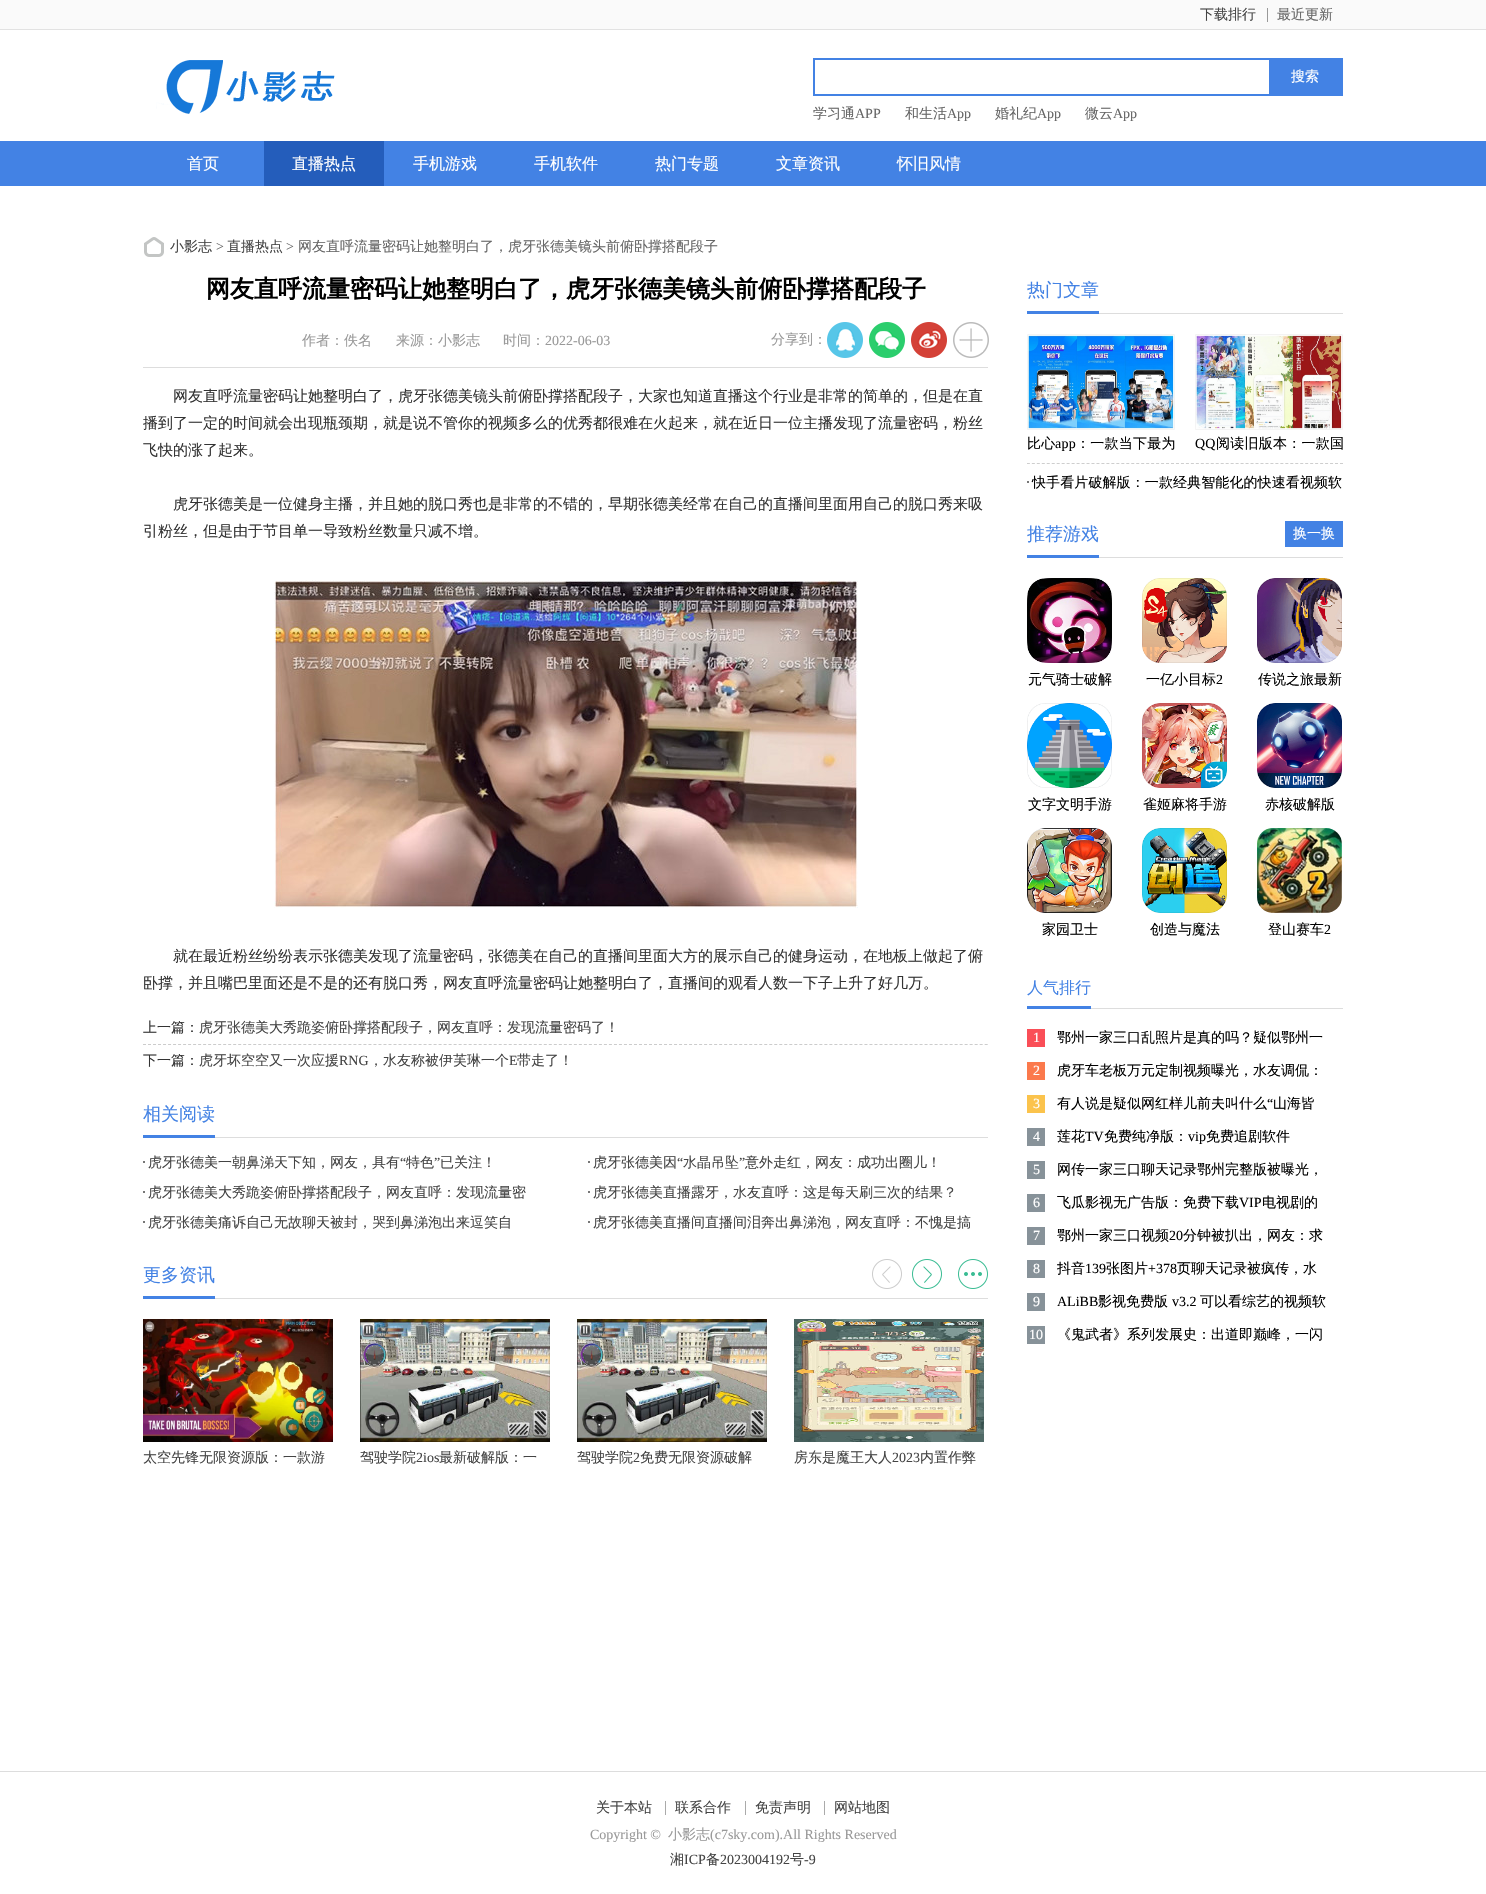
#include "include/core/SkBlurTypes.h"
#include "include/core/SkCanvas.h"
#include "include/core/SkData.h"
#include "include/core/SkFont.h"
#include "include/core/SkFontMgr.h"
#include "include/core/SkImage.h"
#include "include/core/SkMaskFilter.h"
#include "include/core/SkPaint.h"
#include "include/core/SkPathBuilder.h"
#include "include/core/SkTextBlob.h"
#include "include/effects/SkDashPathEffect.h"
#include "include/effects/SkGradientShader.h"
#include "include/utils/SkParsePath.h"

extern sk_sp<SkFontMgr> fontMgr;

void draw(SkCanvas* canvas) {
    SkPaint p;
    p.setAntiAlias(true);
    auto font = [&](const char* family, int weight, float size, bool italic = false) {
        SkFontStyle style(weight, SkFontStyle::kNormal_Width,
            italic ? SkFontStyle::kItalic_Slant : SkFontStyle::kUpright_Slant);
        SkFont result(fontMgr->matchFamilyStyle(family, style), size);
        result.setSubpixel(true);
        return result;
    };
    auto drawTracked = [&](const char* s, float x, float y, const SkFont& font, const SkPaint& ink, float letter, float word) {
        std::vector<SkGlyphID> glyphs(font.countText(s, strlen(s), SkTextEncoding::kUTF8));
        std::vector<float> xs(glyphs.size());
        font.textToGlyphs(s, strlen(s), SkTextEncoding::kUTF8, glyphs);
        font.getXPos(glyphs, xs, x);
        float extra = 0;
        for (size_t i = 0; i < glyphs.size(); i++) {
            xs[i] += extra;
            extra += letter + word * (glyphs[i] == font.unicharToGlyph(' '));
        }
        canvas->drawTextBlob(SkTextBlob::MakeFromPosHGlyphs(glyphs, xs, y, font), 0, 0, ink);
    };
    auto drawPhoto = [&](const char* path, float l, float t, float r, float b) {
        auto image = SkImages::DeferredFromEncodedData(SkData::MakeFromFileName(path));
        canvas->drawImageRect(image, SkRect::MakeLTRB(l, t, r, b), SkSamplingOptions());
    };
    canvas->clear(0xFFFFFFFF);
    p.setColor(0xFFFAFAFA);
    canvas->drawRect(SkRect::MakeLTRB(0, 0, 1486, 29), p);
    p.setColor(0xFFE2E2E2);
    canvas->drawRect(SkRect::MakeLTRB(0, 29, 1486, 30), p);
    auto font1 = font("WenQuanYi Zen Hei", 500, 14);
    p.setColor(0xFF444444);
    canvas->drawString("下载排行", 1200, 19, font1, p);
    p.setColor(0xFF999999);
    canvas->drawRect(SkRect::MakeLTRB(1267, 8, 1268, 22), p);
    p.setColor(0xFF666666);
    canvas->drawString("最近更新", 1277, 19, font1, p);
    drawPhoto("media/1.png", 156, 60, 335, 114);
    p.setStyle(SkPaint::kStroke_Style);
    p.setStrokeWidth(2);
    p.setColor(0xFF4382E4);
    canvas->drawRect(SkRect::MakeLTRB(814, 59, 1342, 95), p);
    p.setStyle(SkPaint::kFill_Style);
    canvas->drawRect(SkRect::MakeLTRB(1269, 60, 1341, 94), p);
    p.setColor(0xFFFFFFFF);
    canvas->drawString("搜索", 1291, 81, font1, p);
    p.setColor(0xFF666666);
    canvas->drawString("学习通", 813, 118, font1, p);
    auto font2 = font("Liberation Serif", 400, 14);
    canvas->drawString("APP", 855, 118, font2, p);
    canvas->drawString("和生活", 905, 118, font1, p);
    canvas->drawString("App", 947, 118, font2, p);
    canvas->drawString("婚礼纪", 995, 118, font1, p);
    canvas->drawString("App", 1037, 118, font2, p);
    canvas->drawString("微云", 1085, 118, font1, p);
    canvas->drawString("App", 1113, 118, font2, p);
    p.setColor(0xFF4382E4);
    canvas->drawRect(SkRect::MakeLTRB(0, 141, 1486, 186), p);
    auto font3 = font("WenQuanYi Zen Hei", 500, 16);
    p.setColor(0xFFFFFFFF);
    canvas->drawString("首页", 187, 169, font3, p);
    p.setColor(0xFF245DBB);
    canvas->drawRect(SkRect::MakeLTRB(264, 141, 384, 186), p);
    p.setColor(0xFFFFFFFF);
    {
        const struct { const char* s; float x, y; } items[] = {
            {"直播热点", 292, 169},
            {"手机游戏", 413, 169},
            {"手机软件", 534, 169},
            {"热门专题", 655, 169},
            {"文章资讯", 776, 169},
            {"怀旧风情", 897, 169},
        };
        for (auto [s, x, y] : items) {
            canvas->drawString(s, x, y, font3, p);
        }
    }
    drawPhoto("media/2.png", 144, 237, 164, 257);
    p.setColor(0xFF444444);
    canvas->drawString("小影志", 170, 251, font1, p);
    p.setColor(0xFF666666);
    canvas->drawString(">", 216, 251, font2, p);
    p.setColor(0xFF444444);
    canvas->drawString("直播热点", 227, 251, font1, p);
    p.setColor(0xFF666666);
    canvas->drawString(">", 286, 251, font2, p);
    canvas->drawString("网友直呼流量密码让她整明白了，虎牙张德美镜头前俯卧撑搭配段子", 298, 251, font1, p);
    p.setColor(0xFFDDDDDD);
    canvas->drawRect(SkRect::MakeLTRB(143, 367, 988, 368), p);
    auto font4 = font("WenQuanYi Zen Hei", 700, 24);
    p.setColor(0xFF000000);
    canvas->drawString("网友直呼流量密码让她整明白了，虎牙张德美镜头前俯卧撑搭配段子", 206, 297, font4, p);
    p.setColor(0xFF999999);
    {
        const struct { const char* s; float x, y; } items[] = {
            {"作者：佚名", 302, 345},
            {"来源：小影志", 396, 345},
            {"时间：", 503, 345},
        };
        for (auto [s, x, y] : items) {
            canvas->drawString(s, x, y, font1, p);
        }
    }
    canvas->drawString("2022-06-03", 545, 345, font2, p);
    canvas->drawString("分享到：", 771, 344, font1, p);
    drawPhoto("media/3.png", 827, 322, 863, 358);
    drawPhoto("media/4.png", 869, 322, 905, 358);
    drawPhoto("media/5.png", 911, 322, 947, 358);
    drawPhoto("media/6.png", 953, 322, 989, 358);
    auto font5 = font("WenQuanYi Zen Hei", 500, 15);
    p.setColor(0xFF333333);
    {
        const struct { const char* s; float x, y; } items[] = {
            {"网友直呼流量密码让她整明白了，虎牙张德美镜头前俯卧撑搭配段子，大家也知道直播这个行业是非常的简单的，但是在直", 173, 401},
            {"播到了一定的时间就会出现瓶颈期，就是说不管你的视频多么的优秀都很难在火起来，就在近日一位主播发现了流量密码，粉丝", 143, 428},
            {"飞快的涨了起来。", 143, 455},
            {"虎牙张德美是一位健身主播，并且她的脱口秀也是非常的不错的，早期张德美经常在自己的直播间里面用自己的脱口秀来吸", 173, 509},
            {"引粉丝，但是由于节目单一导致粉丝数量只减不增。", 143, 536},
        };
        for (auto [s, x, y] : items) {
            canvas->drawString(s, x, y, font5, p);
        }
    }
    drawPhoto("media/7.png", 274, 580, 858, 908);
    canvas->drawString("就在最近粉丝纷纷表示张德美发现了流量密码，张德美在自己的直播间里面大方的展示自己的健身运动，在地板上做起了俯", 173, 961, font5, p);
    canvas->drawString("卧撑，并且嘴巴里面还是不是的还有脱口秀，网友直呼流量密码让她整明白了，直播间的观看人数一下子上升了好几万。", 143, 988, font5, p);
    canvas->drawString("上一篇：", 143, 1032, font1, p);
    p.setColor(0xFF444444);
    canvas->drawString("虎牙张德美大秀跪姿俯卧撑搭配段子，网友直呼：发现流量密码了！", 199, 1032, font1, p);
    p.setStyle(SkPaint::kStroke_Style);
    p.setStrokeWidth(1);
    p.setColor(0xFFCCCCCC);
    p.setPathEffect(SkDashPathEffect::Make({{3, 2.01f}}, 0));
    canvas->drawPath(SkPathBuilder().moveTo(143, 1044.5f).lineTo(988, 1044.5f).detach(), p);
    p.setPathEffect(nullptr);
    p.setStyle(SkPaint::kFill_Style);
    p.setColor(0xFF333333);
    canvas->drawString("下一篇：", 143, 1065, font1, p);
    p.setColor(0xFF444444);
    canvas->drawString("虎牙坏空空又一次应援", 199, 1065, font1, p);
    canvas->drawString("RNG", 339, 1065, font2, p);
    canvas->drawString("，水友称被伊芙琳一个", 369, 1065, font1, p);
    canvas->drawString("E", 509, 1065, font2, p);
    canvas->drawString("带走了！", 517, 1065, font1, p);
    p.setColor(0xFFDDDDDD);
    canvas->drawRect(SkRect::MakeLTRB(215, 1137, 988, 1138), p);
    p.setColor(0xFF4382E4);
    canvas->drawRect(SkRect::MakeLTRB(143, 1135, 215, 1138), p);
    auto font6 = font("WenQuanYi Zen Hei", 500, 18);
    canvas->drawString("相关阅读", 143, 1120, font6, p);
    p.setColor(0xFF777777);
    canvas->drawRect(SkRect::MakeLTRB(143, 1161, 145, 1163), p);
    p.setColor(0xFF444444);
    canvas->drawString("虎牙张德美一朝鼻涕天下知，网友，具有", 148, 1167, font1, p);
    canvas->drawString("“", 400, 1167, font2, p);
    canvas->drawString("特色", 406, 1167, font1, p);
    canvas->drawString("”", 434, 1167, font2, p);
    canvas->drawString("已关注！", 440, 1167, font1, p);
    p.setColor(0xFF777777);
    canvas->drawRect(SkRect::MakeLTRB(588, 1161, 590, 1163), p);
    p.setColor(0xFF444444);
    canvas->drawString("虎牙张德美因", 593, 1167, font1, p);
    canvas->drawString("“", 677, 1167, font2, p);
    canvas->drawString("水晶吊坠", 683, 1167, font1, p);
    canvas->drawString("”", 739, 1167, font2, p);
    canvas->drawString("意外走红，网友：成功出圈儿！", 745, 1167, font1, p);
    p.setColor(0xFF777777);
    canvas->drawRect(SkRect::MakeLTRB(143, 1191, 145, 1193), p);
    p.setColor(0xFF444444);
    canvas->drawString("虎牙张德美大秀跪姿俯卧撑搭配段子，网友直呼：发现流量密", 148, 1197, font1, p);
    p.setColor(0xFF777777);
    canvas->drawRect(SkRect::MakeLTRB(588, 1191, 590, 1193), p);
    p.setColor(0xFF444444);
    canvas->drawString("虎牙张德美直播露牙，水友直呼：这是每天刷三次的结果？", 593, 1197, font1, p);
    p.setColor(0xFF777777);
    canvas->drawRect(SkRect::MakeLTRB(143, 1221, 145, 1223), p);
    p.setColor(0xFF444444);
    canvas->drawString("虎牙张德美痛诉自己无故聊天被封，哭到鼻涕泡出来逗笑自", 148, 1227, font1, p);
    p.setColor(0xFF777777);
    canvas->drawRect(SkRect::MakeLTRB(588, 1221, 590, 1223), p);
    p.setColor(0xFF444444);
    canvas->drawString("虎牙张德美直播间直播间泪奔出鼻涕泡，网友直呼：不愧是搞", 593, 1227, font1, p);
    p.setColor(0xFFDDDDDD);
    canvas->drawRect(SkRect::MakeLTRB(215, 1298, 988, 1299), p);
    p.setColor(0xFF4382E4);
    canvas->drawRect(SkRect::MakeLTRB(143, 1296, 215, 1299), p);
    canvas->drawString("更多资讯", 143, 1281, font6, p);
    drawPhoto("media/8.png", 872, 1259, 902, 1289);
    drawPhoto("media/9.png", 912, 1259, 942, 1289);
    drawPhoto("media/10.png", 958, 1259, 988, 1289);
    drawPhoto("media/11.png", 143, 1319, 333, 1442);
    p.setColor(0xFF444444);
    canvas->drawString("太空先锋无限资源版：一款游", 143, 1462, font1, p);
    drawPhoto("media/12.png", 360, 1319, 550, 1442);
    canvas->drawString("驾驶学院", 360, 1462, font1, p);
    canvas->drawString("2ios", 416, 1462, font2, p);
    canvas->drawString("最新破解版：一", 439, 1462, font1, p);
    drawPhoto("media/12.png", 577, 1319, 767, 1442);
    canvas->drawString("驾驶学院", 577, 1462, font1, p);
    canvas->drawString("2", 633, 1462, font2, p);
    canvas->drawString("免费无限资源破解", 640, 1462, font1, p);
    drawPhoto("media/13.png", 794, 1319, 984, 1442);
    canvas->drawString("房东是魔王大人", 794, 1462, font1, p);
    canvas->drawString("2023", 892, 1462, font2, p);
    canvas->drawString("内置作弊", 920, 1462, font1, p);
    p.setColor(0xFFDDDDDD);
    canvas->drawRect(SkRect::MakeLTRB(1099, 313, 1343, 314), p);
    p.setColor(0xFF4382E4);
    canvas->drawRect(SkRect::MakeLTRB(1027, 311, 1099, 314), p);
    canvas->drawString("热门文章", 1027, 296, font6, p);
    canvas->save();
    canvas->clipRect(SkRect::MakeLTRB(1027, 334, 1343, 497));
    p.setStyle(SkPaint::kStroke_Style);
    p.setColor(0xFFCECECE);
    p.setPathEffect(SkDashPathEffect::Make({{3, 1.97f}}, 0));
    canvas->drawPath(SkPathBuilder().moveTo(1007, 463.5f).lineTo(1343, 463.5f).detach(), p);
    p.setPathEffect(nullptr);
    canvas->restore();
    drawPhoto("media/14.png", 1027, 334, 1175, 430);
    p.setStyle(SkPaint::kFill_Style);
    p.setColor(0xFF000000);
    drawTracked("比心", 1027, 448, font1, p, 0.25f, 0);
    drawTracked("app", 1055, 448, font2, p, 0.25f, 0);
    drawTracked("：一款当下最为", 1076, 448, font1, p, 0.25f, 0);
    drawPhoto("media/15.png", 1195, 334, 1343, 430);
    drawTracked("QQ", 1195, 448, font2, p, 0.25f, 0);
    drawTracked("阅读旧版本：一款国", 1216, 448, font1, p, 0.25f, 0);
    p.setColor(0xFF777777);
    canvas->drawRect(SkRect::MakeLTRB(1027, 481, 1029, 483), p);
    p.setColor(0xFF000000);
    drawTracked("快手看片破解版：一款经典智能化的快速看视频软", 1032, 487, font1, p, 0.1f, 0);
    p.setColor(0xFFDDDDDD);
    canvas->drawRect(SkRect::MakeLTRB(1099, 557, 1343, 558), p);
    p.setColor(0xFF4382E4);
    canvas->drawRect(SkRect::MakeLTRB(1027, 555, 1099, 558), p);
    canvas->drawString("推荐游戏", 1027, 540, font6, p);
    canvas->drawRect(SkRect::MakeLTRB(1285, 521, 1343, 547), p);
    p.setColor(0xFFFFFFFF);
    canvas->drawString("换一换", 1293, 538, font1, p);
    drawPhoto("media/16.png", 1027, 578, 1112, 663);
    p.setColor(0xFF000000);
    canvas->drawString("元气骑士破解", 1028, 684, font1, p);
    drawPhoto("media/17.png", 1142, 578, 1227, 663);
    canvas->drawString("一亿小目标", 1146, 684, font1, p);
    canvas->drawString("2", 1216, 684, font2, p);
    drawPhoto("media/18.png", 1257, 578, 1342, 663);
    canvas->drawString("传说之旅最新", 1258, 684, font1, p);
    drawPhoto("media/19.png", 1027, 703, 1112, 788);
    canvas->drawString("文字文明手游", 1028, 809, font1, p);
    drawPhoto("media/20.png", 1142, 703, 1227, 788);
    canvas->drawString("雀姬麻将手游", 1143, 809, font1, p);
    drawPhoto("media/21.png", 1257, 703, 1342, 788);
    canvas->drawString("赤核破解版", 1265, 809, font1, p);
    drawPhoto("media/22.png", 1027, 828, 1112, 913);
    canvas->drawString("家园卫士", 1042, 934, font1, p);
    drawPhoto("media/23.png", 1142, 828, 1227, 913);
    canvas->drawString("创造与魔法", 1150, 934, font1, p);
    drawPhoto("media/24.png", 1257, 828, 1342, 913);
    canvas->drawString("登山赛车", 1268, 934, font1, p);
    canvas->drawString("2", 1324, 934, font2, p);
    p.setColor(0xFFDDDDDD);
    canvas->drawRect(SkRect::MakeLTRB(1091, 1008, 1343, 1009), p);
    p.setColor(0xFF4382E4);
    canvas->drawRect(SkRect::MakeLTRB(1027, 1006, 1091, 1009), p);
    canvas->drawString("人气排行", 1027, 993, font3, p);
    p.setColor(0xFFFA4E57);
    canvas->drawRect(SkRect::MakeLTRB(1027, 1029, 1045, 1047), p);
    p.setColor(0xFFFFFFFF);
    canvas->drawString("1", 1033, 1042, font2, p);
    p.setColor(0xFF000000);
    canvas->drawString("鄂州一家三口乱照片是真的吗？疑似鄂州一", 1057, 1042, font1, p);
    p.setColor(0xFFFB794C);
    canvas->drawRect(SkRect::MakeLTRB(1027, 1062, 1045, 1080), p);
    p.setColor(0xFFFFFFFF);
    canvas->drawString("2", 1033, 1075, font2, p);
    p.setColor(0xFF000000);
    canvas->drawString("虎牙车老板万元定制视频曝光，水友调侃：", 1057, 1075, font1, p);
    p.setColor(0xFFFBC34C);
    canvas->drawRect(SkRect::MakeLTRB(1027, 1095, 1045, 1113), p);
    p.setColor(0xFFFFFFFF);
    canvas->drawString("3", 1033, 1108, font2, p);
    p.setColor(0xFF000000);
    canvas->drawString("有人说是疑似网红样儿前夫叫什么", 1057, 1108, font1, p);
    canvas->drawString("“", 1267, 1108, font2, p);
    canvas->drawString("山海皆", 1273, 1108, font1, p);
    p.setColor(0xFF879299);
    canvas->drawRect(SkRect::MakeLTRB(1027, 1128, 1045, 1146), p);
    p.setColor(0xFFFFFFFF);
    canvas->drawString("4", 1033, 1141, font2, p);
    p.setColor(0xFF000000);
    canvas->drawString("莲花", 1057, 1141, font1, p);
    canvas->drawString("TV", 1085, 1141, font2, p);
    canvas->drawString("免费纯净版：", 1104, 1141, font1, p);
    canvas->drawString("vip", 1188, 1141, font2, p);
    canvas->drawString("免费追剧软件", 1206, 1141, font1, p);
    p.setColor(0xFF879299);
    canvas->drawRect(SkRect::MakeLTRB(1027, 1161, 1045, 1179), p);
    p.setColor(0xFFFFFFFF);
    canvas->drawString("5", 1033, 1174, font2, p);
    p.setColor(0xFF000000);
    canvas->drawString("网传一家三口聊天记录鄂州完整版被曝光，", 1057, 1174, font1, p);
    p.setColor(0xFF879299);
    canvas->drawRect(SkRect::MakeLTRB(1027, 1194, 1045, 1212), p);
    p.setColor(0xFFFFFFFF);
    canvas->drawString("6", 1033, 1207, font2, p);
    p.setColor(0xFF000000);
    canvas->drawString("飞瓜影视无广告版：免费下载", 1057, 1207, font1, p);
    canvas->drawString("VIP", 1239, 1207, font2, p);
    canvas->drawString("电视剧的", 1262, 1207, font1, p);
    p.setColor(0xFF879299);
    canvas->drawRect(SkRect::MakeLTRB(1027, 1227, 1045, 1245), p);
    p.setColor(0xFFFFFFFF);
    canvas->drawString("7", 1033, 1240, font2, p);
    p.setColor(0xFF000000);
    canvas->drawString("鄂州一家三口视频", 1057, 1240, font1, p);
    canvas->drawString("20", 1169, 1240, font2, p);
    canvas->drawString("分钟被扒出，网友：求", 1183, 1240, font1, p);
    p.setColor(0xFF879299);
    canvas->drawRect(SkRect::MakeLTRB(1027, 1260, 1045, 1278), p);
    p.setColor(0xFFFFFFFF);
    canvas->drawString("8", 1033, 1273, font2, p);
    p.setColor(0xFF000000);
    canvas->drawString("抖音", 1057, 1273, font1, p);
    canvas->drawString("139", 1085, 1273, font2, p);
    canvas->drawString("张图片", 1106, 1273, font1, p);
    canvas->drawString("+378", 1148, 1273, font2, p);
    canvas->drawString("页聊天记录被疯传，水", 1177, 1273, font1, p);
    p.setColor(0xFF879299);
    canvas->drawRect(SkRect::MakeLTRB(1027, 1293, 1045, 1311), p);
    p.setColor(0xFFFFFFFF);
    canvas->drawString("9", 1033, 1306, font2, p);
    p.setColor(0xFF000000);
    canvas->drawString("ALiBB", 1057, 1306, font2, p);
    canvas->drawString("影视免费版", 1098, 1306, font1, p);
    canvas->drawString("v3.2", 1172, 1306, font2, p);
    canvas->drawString("可以看综艺的视频软", 1200, 1306, font1, p);
    p.setColor(0xFF879299);
    canvas->drawRect(SkRect::MakeLTRB(1027, 1326, 1045, 1344), p);
    p.setColor(0xFFFFFFFF);
    canvas->drawString("10", 1029, 1339, font2, p);
    p.setColor(0xFF000000);
    canvas->drawString("《鬼武者》系列发展史：出道即巅峰，一闪", 1057, 1339, font1, p);
    p.setColor(0xFFDDDDDD);
    canvas->drawRect(SkRect::MakeLTRB(0, 1771, 1486, 1772), p);
    p.setColor(0xFF444444);
    canvas->drawString("关于本站", 596, 1812, font1, p);
    p.setColor(0xFFAAAAAA);
    canvas->drawRect(SkRect::MakeLTRB(665, 1801, 666, 1815), p);
    p.setColor(0xFF444444);
    canvas->drawString("联系合作", 675, 1812, font1, p);
    p.setColor(0xFFAAAAAA);
    canvas->drawRect(SkRect::MakeLTRB(745, 1801, 746, 1815), p);
    p.setColor(0xFF444444);
    canvas->drawString("免责声明", 755, 1812, font1, p);
    p.setColor(0xFFAAAAAA);
    canvas->drawRect(SkRect::MakeLTRB(824, 1801, 825, 1815), p);
    p.setColor(0xFF444444);
    canvas->drawString("网站地图", 834, 1812, font1, p);
    p.setColor(0xFF999999);
    canvas->drawString("Copyright ©", 590, 1839, font2, p);
    canvas->drawString("小影志", 668, 1839, font1, p);
    canvas->drawString("(c7sky.com).All Rights Reserved", 710, 1839, font2, p);
    p.setColor(0xFF444444);
    canvas->drawString("湘", 670, 1864, font1, p);
    canvas->drawString("ICP", 684, 1864, font2, p);
    canvas->drawString("备", 706, 1864, font1, p);
    canvas->drawString("2023004192", 720, 1864, font2, p);
    canvas->drawString("号", 790, 1864, font1, p);
    canvas->drawString("-9", 804, 1864, font2, p);
}
